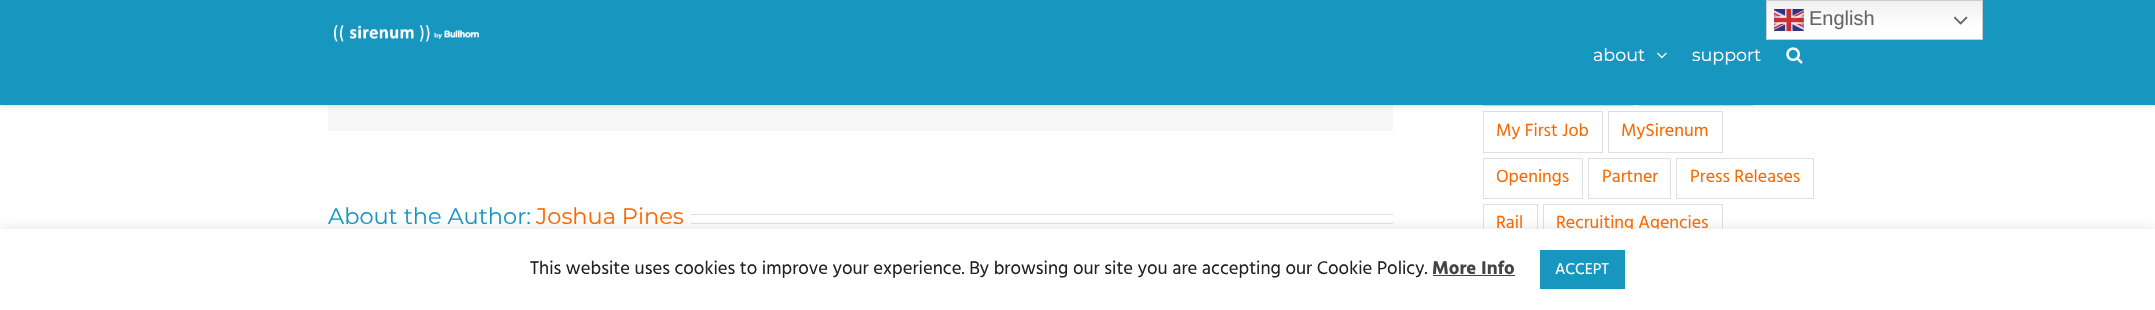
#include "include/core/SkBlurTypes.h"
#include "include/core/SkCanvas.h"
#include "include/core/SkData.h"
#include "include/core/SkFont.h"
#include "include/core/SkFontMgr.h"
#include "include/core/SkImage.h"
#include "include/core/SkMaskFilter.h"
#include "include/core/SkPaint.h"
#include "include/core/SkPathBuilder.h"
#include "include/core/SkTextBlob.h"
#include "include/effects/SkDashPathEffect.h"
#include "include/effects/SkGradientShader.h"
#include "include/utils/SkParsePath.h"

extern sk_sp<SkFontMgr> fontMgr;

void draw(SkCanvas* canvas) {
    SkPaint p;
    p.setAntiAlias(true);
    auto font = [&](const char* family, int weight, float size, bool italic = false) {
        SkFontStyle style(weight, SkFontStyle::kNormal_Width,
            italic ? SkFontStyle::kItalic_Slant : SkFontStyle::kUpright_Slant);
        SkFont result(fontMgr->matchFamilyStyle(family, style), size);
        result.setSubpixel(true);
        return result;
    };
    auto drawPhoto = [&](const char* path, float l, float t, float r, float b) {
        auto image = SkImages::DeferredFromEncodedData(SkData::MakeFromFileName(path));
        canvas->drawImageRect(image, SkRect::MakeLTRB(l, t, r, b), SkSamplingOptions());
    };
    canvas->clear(0xFFFFFFFF);
    p.setColor(0xFFF6F6F6);
    canvas->drawRect(SkRect::MakeLTRB(328, 105, 1393, 131), p);
    p.setStyle(SkPaint::kStroke_Style);
    p.setStrokeWidth(1);
    p.setColor(0xFFE0DEDE);
    canvas->drawRect(SkRect::MakeLTRB(1483.5f, 66.5f, 1633.5f, 105.5f), p);
    canvas->drawRect(SkRect::MakeLTRB(1639.5f, 66.5f, 1752.5f, 105.5f), p);
    canvas->drawRect(SkRect::MakeLTRB(1483.5f, 111.5f, 1602.5f, 152.5f), p);
    canvas->drawRect(SkRect::MakeLTRB(1608.5f, 111.5f, 1722.5f, 152.5f), p);
    p.setStyle(SkPaint::kFill_Style);
    p.setColor(0x1F000000);
    p.setMaskFilter(SkMaskFilter::MakeBlur(kNormal_SkBlurStyle, 2));
    canvas->drawRect(SkRect::MakeLTRB(0, 1, 2155, 106), p);
    p.setMaskFilter(nullptr);
    p.setColor(0xFF1797C0);
    canvas->drawRect(SkRect::MakeLTRB(0, 0, 2155, 105), p);
    {
        const SkColor colors[] = {0xFFEFEFEF, 0xFFFFFFFF};
        const float stops[] = {0, 0.7f};
        const SkPoint ends[] = {{1874, 0}, {1874, 40}};
        p.setShader(SkGradientShader::MakeLinear(ends, colors, stops, 2, SkTileMode::kClamp));
        p.setAlpha(255);
    }
    canvas->drawRect(SkRect::MakeLTRB(1767, 1, 1982, 39), p);
    p.setStyle(SkPaint::kStroke_Style);
    p.setShader(nullptr);
    p.setColor(0xFFCCCCCC);
    canvas->drawRect(SkRect::MakeLTRB(1766.5f, 0.5f, 1982.5f, 39.5f), p);
    drawPhoto("media/1.png", 1774, 8, 1804, 32);
    auto font1 = font("Liberation Sans", 400, 20);
    p.setStyle(SkPaint::kFill_Style);
    p.setColor(0xFF666666);
    canvas->drawString("English", 1809, 25, font1, p);
    drawPhoto("media/2.png", 1954, 16, 1968, 25);
    p.setColor(0xFFE0DEDE);
    canvas->drawRect(SkRect::MakeLTRB(691, 214, 1393, 215), p);
    canvas->drawRect(SkRect::MakeLTRB(691, 223, 1393, 224), p);
    p.setStyle(SkPaint::kStroke_Style);
    canvas->drawRect(SkRect::MakeLTRB(1483.5f, 204.5f, 1537.5f, 244.5f), p);
    canvas->drawRect(SkRect::MakeLTRB(1543.5f, 204.5f, 1722.5f, 244.5f), p);
    p.setStyle(SkPaint::kFill_Style);
    p.setColor(0x4DACABAB);
    p.setMaskFilter(SkMaskFilter::MakeBlur(kNormal_SkBlurStyle, 6));
    canvas->drawRect(SkRect::MakeLTRB(0, 228, 2155, 309), p);
    p.setMaskFilter(nullptr);
    auto font2 = font("Hind", 400, 18);
    p.setColor(0xFFFA6900);
    canvas->drawString("Recruiting Agencies", 1556, 228, font2, p);
    p.setColor(0xFFFFFFFF);
    canvas->drawRect(SkRect::MakeLTRB(0, 229, 2155, 310), p);
    auto font3 = font("Hind", 400, 18.75f);
    p.setColor(0xFF212121);
    canvas->drawString("This website uses cookies to improve your experience. By browsing our site you are accepting our Cookie Policy.", 530, 274, font3, p);
    auto font4 = font("Hind", 700, 18.75f);
    p.setColor(0xFF444444);
    canvas->drawString("More Info", 1432, 274, font4, p);
    canvas->drawRect(SkRect::MakeLTRB(1433, 275, 1515, 276), p);
    p.setColor(0xFF1797C0);
    canvas->drawRect(SkRect::MakeLTRB(1540, 250, 1625, 289), p);
    auto font5 = font("Hind", 400, 16);
    p.setColor(0xFFFFFFFF);
    canvas->drawString("ACCEPT", 1555, 274, font5, p);
    drawPhoto("media/3.png", 334, 25, 479, 42);
    auto font6 = font("Montserrat", 100, 17.5f);
    canvas->drawString("about", 1593, 61, font6, p);
    drawPhoto("media/4.png", 1657, 52, 1667, 59);
    canvas->drawString("support", 1692, 61, font6, p);
    drawPhoto("media/5.png", 1786, 47, 1803, 64);
    auto font7 = font("Montserrat", 100, 22.5f);
    p.setColor(0xFF1797C0);
    canvas->drawString("About the Author:", 328, 224, font7, p);
    p.setColor(0xFFFA6900);
    canvas->drawString("Joshua Pines", 536, 224, font7, p);
    canvas->drawString("My First Job", 1496, 136, font2, p);
    canvas->drawString("MySirenum", 1621, 136, font2, p);
    p.setStyle(SkPaint::kStroke_Style);
    p.setColor(0xFFE0DEDE);
    canvas->drawRect(SkRect::MakeLTRB(1483.5f, 158.5f, 1582.5f, 198.5f), p);
    p.setStyle(SkPaint::kFill_Style);
    p.setColor(0xFFFA6900);
    canvas->drawString("Openings", 1496, 182, font2, p);
    p.setStyle(SkPaint::kStroke_Style);
    p.setColor(0xFFE0DEDE);
    canvas->drawRect(SkRect::MakeLTRB(1588.5f, 158.5f, 1670.5f, 198.5f), p);
    p.setStyle(SkPaint::kFill_Style);
    p.setColor(0xFFFA6900);
    canvas->drawString("Partner", 1602, 182, font2, p);
    p.setStyle(SkPaint::kStroke_Style);
    p.setColor(0xFFE0DEDE);
    canvas->drawRect(SkRect::MakeLTRB(1676.5f, 158.5f, 1813.5f, 198.5f), p);
    p.setStyle(SkPaint::kFill_Style);
    p.setColor(0xFFFA6900);
    canvas->drawString("Press Releases", 1690, 182, font2, p);
    canvas->drawString("Rail", 1496, 228, font2, p);
}
